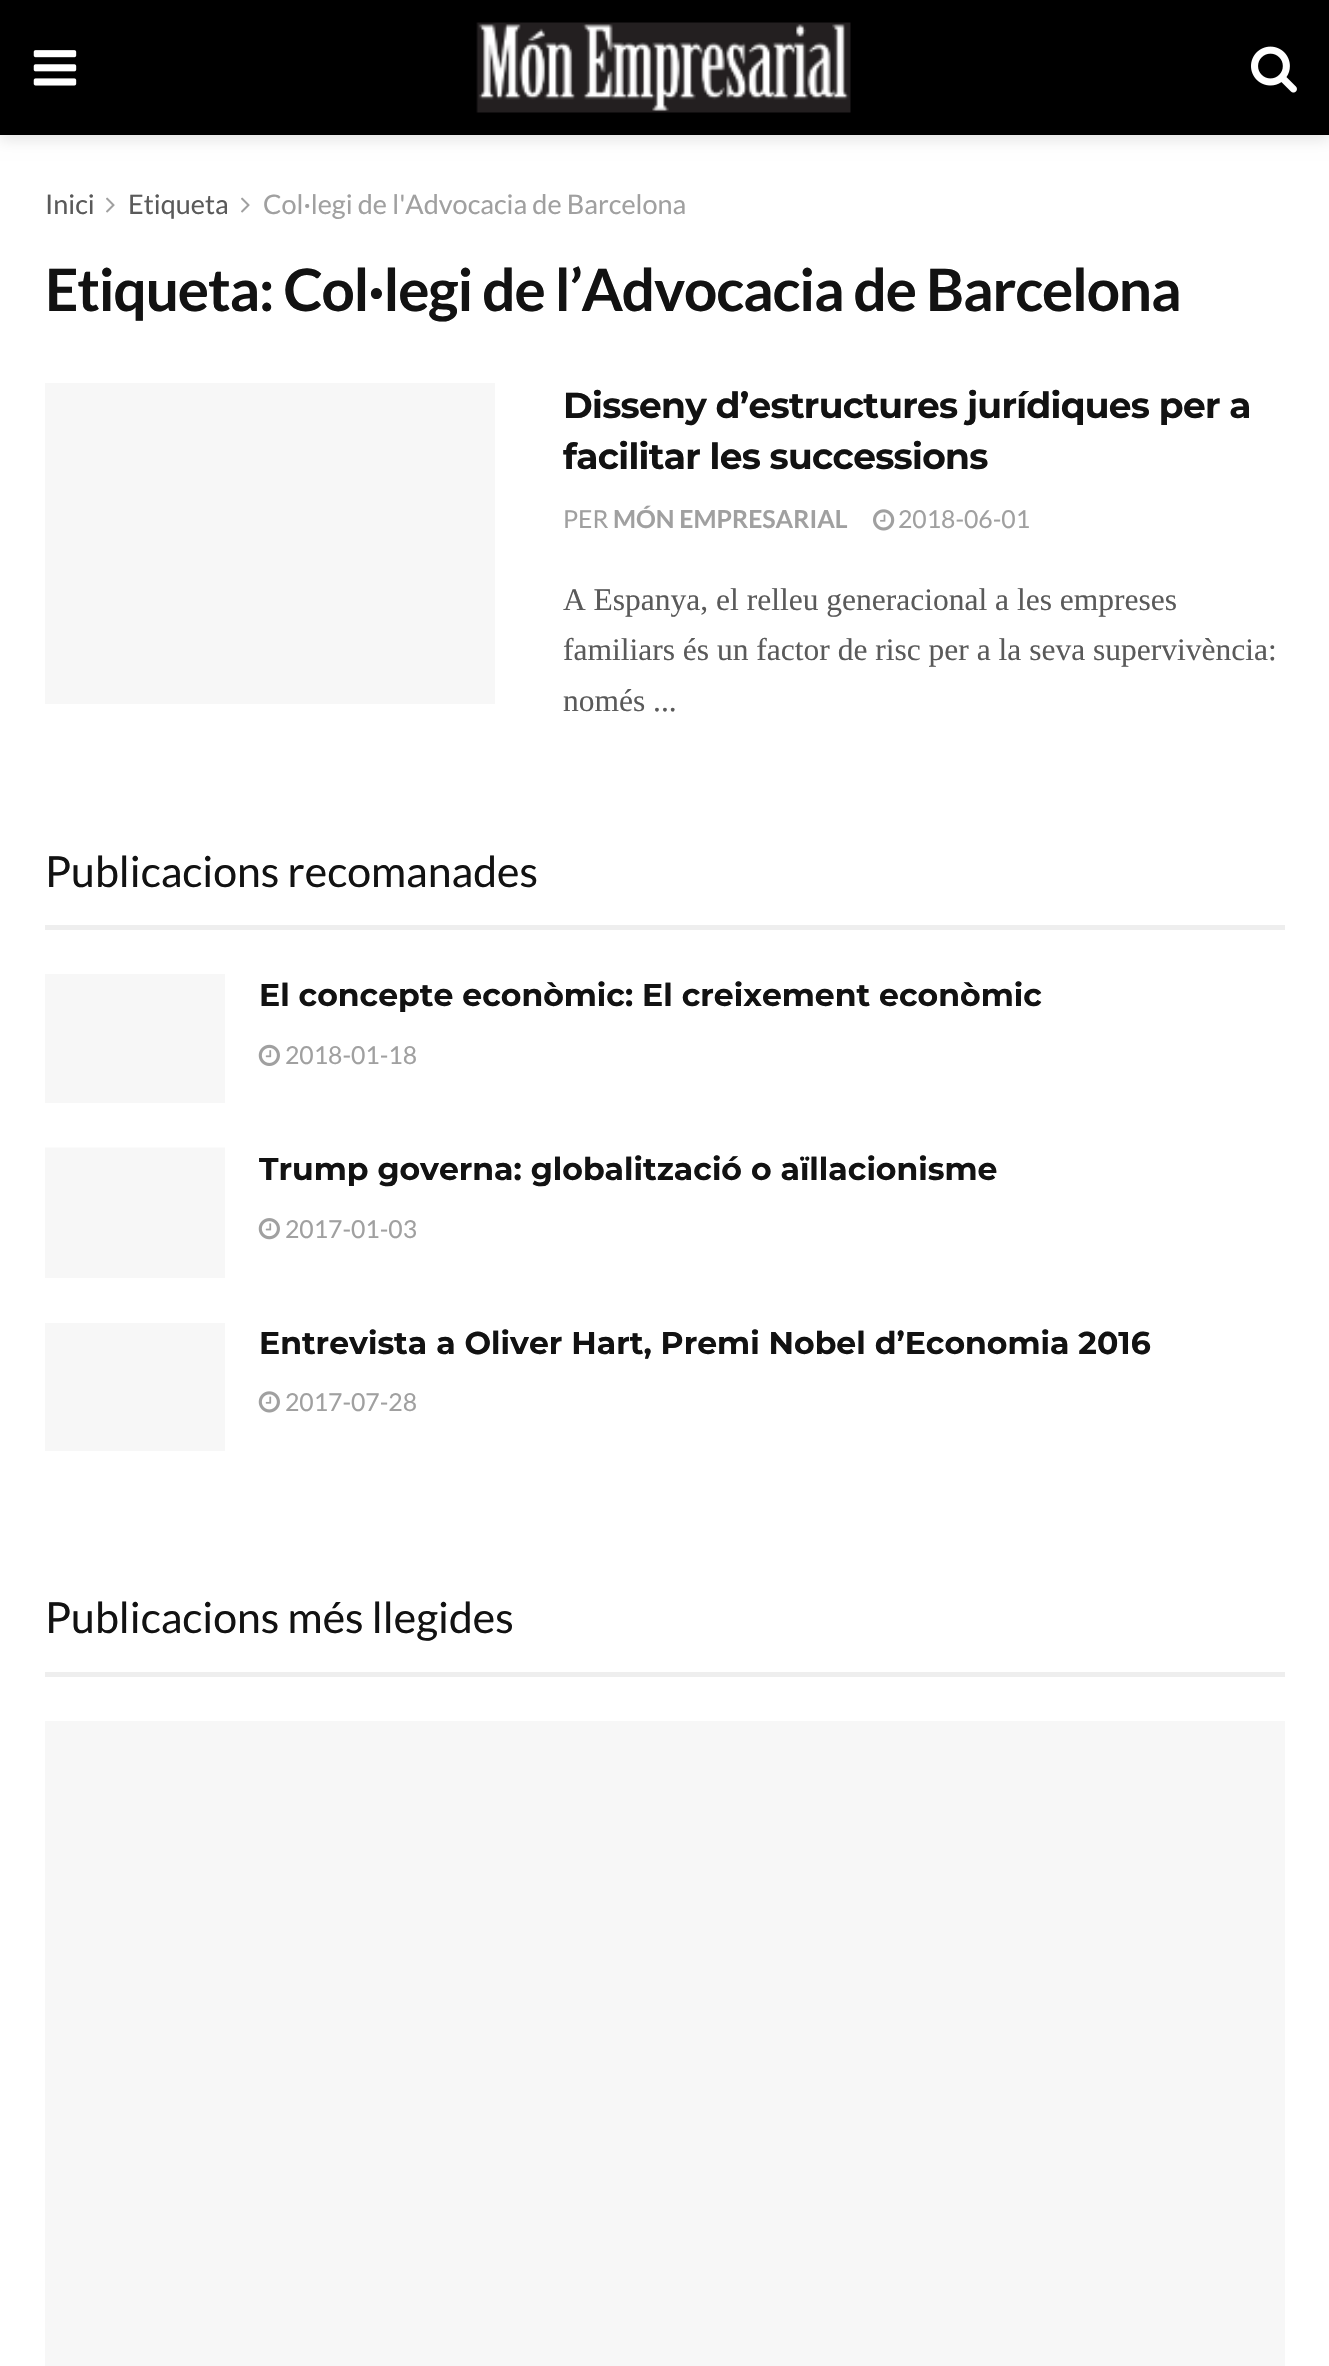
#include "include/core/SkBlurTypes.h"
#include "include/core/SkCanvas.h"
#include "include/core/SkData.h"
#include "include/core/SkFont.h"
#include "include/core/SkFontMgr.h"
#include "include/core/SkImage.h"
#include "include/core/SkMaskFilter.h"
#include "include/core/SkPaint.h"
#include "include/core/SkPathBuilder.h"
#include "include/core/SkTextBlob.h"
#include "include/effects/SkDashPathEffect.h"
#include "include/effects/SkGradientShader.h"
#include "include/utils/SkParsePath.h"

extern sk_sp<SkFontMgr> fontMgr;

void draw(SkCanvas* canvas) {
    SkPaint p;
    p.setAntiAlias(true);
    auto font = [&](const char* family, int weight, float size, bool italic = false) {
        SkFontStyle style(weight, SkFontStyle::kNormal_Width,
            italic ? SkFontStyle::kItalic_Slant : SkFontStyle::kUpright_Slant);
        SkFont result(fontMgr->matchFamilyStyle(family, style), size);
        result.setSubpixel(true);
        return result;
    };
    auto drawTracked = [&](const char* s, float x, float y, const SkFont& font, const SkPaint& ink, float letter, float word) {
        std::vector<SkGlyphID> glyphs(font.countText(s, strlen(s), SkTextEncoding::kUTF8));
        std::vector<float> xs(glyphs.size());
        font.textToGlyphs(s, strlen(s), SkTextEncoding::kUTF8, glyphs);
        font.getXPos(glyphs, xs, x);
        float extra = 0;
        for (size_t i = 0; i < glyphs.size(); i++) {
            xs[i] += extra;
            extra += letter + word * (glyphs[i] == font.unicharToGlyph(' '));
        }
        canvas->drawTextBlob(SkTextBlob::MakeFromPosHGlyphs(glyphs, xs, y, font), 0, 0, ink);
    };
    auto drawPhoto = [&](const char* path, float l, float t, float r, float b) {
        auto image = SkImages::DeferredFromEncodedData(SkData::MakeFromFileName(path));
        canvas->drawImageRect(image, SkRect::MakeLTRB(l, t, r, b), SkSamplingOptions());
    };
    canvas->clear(0xFFFFFFFF);
    p.setColor(0x1A000000);
    p.setMaskFilter(SkMaskFilter::MakeBlur(kNormal_SkBlurStyle, 7));
    canvas->drawRect(SkRect::MakeLTRB(0, 5, 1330, 140), p);
    p.setMaskFilter(nullptr);
    p.setColor(0xFF000000);
    canvas->drawRect(SkRect::MakeLTRB(0, 0, 1329, 135), p);
    drawPhoto("media/1.png", 33, 50, 77, 86);
    drawPhoto("media/2.png", 476, 22, 851, 113);
    drawPhoto("media/3.png", 1251, 46, 1297, 93);
    auto font1 = font("Lato", 400, 27);
    p.setColor(0xFF5A5A5A);
    canvas->drawString("Inici", 45, 214, font1, p);
    drawPhoto("media/4.png", 106, 197, 115, 213);
    canvas->drawString("Etiqueta", 128, 214, font1, p);
    drawPhoto("media/4.png", 241, 197, 250, 213);
    p.setColor(0xFFA0A0A0);
    canvas->drawString("Col·legi de l'Advocacia de Barcelona", 263, 214, font1, p);
    auto font2 = font("Lato", 700, 58.5f);
    p.setColor(0xFF121212);
    drawTracked("Etiqueta: Col·legi de l’Advocacia de Barcelona", 45, 311, font2, p, -1.15f, 0);
    p.setColor(0xFFF7F7F7);
    canvas->drawRect(SkRect::MakeLTRB(45, 383, 495, 704), p);
    auto font3 = font("Montserrat", 700, 36);
    p.setColor(0xFF121212);
    drawTracked("Disseny d’estructures jurídiques per a", 563, 418, font3, p, -0.7f, 0);
    canvas->save();
    canvas->clipRect(SkRect::MakeLTRB(563, 383, 1285, 727));
    drawTracked("facilitar les successions", 563, 469, font3, p, -0.7f, 0);
    canvas->restore();
    auto font4 = font("Lato", 400, 24.75f);
    p.setColor(0xFFA0A0A0);
    canvas->drawString("PER", 563, 528, font4, p);
    auto font5 = font("Lato", 700, 24.75f);
    canvas->drawString("MÓN EMPRESARIAL", 613, 528, font5, p);
    drawPhoto("media/5.png", 873, 509, 895, 531);
    canvas->drawString("2018-06-01", 898, 528, font4, p);
    auto font6 = font("Liberation Serif", 400, 31.5f);
    p.setColor(0xFF5A5A5A);
    {
        const struct { const char* s; float x, y; } items[] = {
            {"A Espanya, el relleu generacional a les empreses", 563, 610},
            {"familiars és un factor de risc per a la seva supervivència:", 563, 660},
            {"només ...", 563, 711},
        };
        for (auto [s, x, y] : items) {
            canvas->drawString(s, x, y, font6, p);
        }
    }
    p.setColor(0xFFEEEEEE);
    canvas->drawRect(SkRect::MakeLTRB(45, 925, 1285, 930), p);
    auto font7 = font("Lato", 400, 42.75f);
    p.setColor(0xFF121212);
    canvas->drawString("Publicacions recomanades", 45, 887, font7, p);
    p.setColor(0xFFF7F7F7);
    canvas->drawRect(SkRect::MakeLTRB(45, 974, 225, 1103), p);
    auto font8 = font("Montserrat", 700, 31.5f);
    p.setColor(0xFF121212);
    canvas->drawString("El concepte econòmic: El creixement econòmic", 259, 1006, font8, p);
    drawPhoto("media/6.png", 258, 1044, 280, 1066);
    p.setColor(0xFFA0A0A0);
    canvas->drawString("2018-01-18", 285, 1064, font4, p);
    p.setColor(0xFFF7F7F7);
    canvas->drawRect(SkRect::MakeLTRB(45, 1148, 225, 1278), p);
    p.setColor(0xFFFBFBFB);
    canvas->drawRect(SkRect::MakeLTRB(45, 1147, 225, 1148), p);
    p.setColor(0xFF121212);
    canvas->drawString("Trump governa: globalització o aïllacionisme", 259, 1180, font8, p);
    drawPhoto("media/7.png", 258, 1218, 280, 1240);
    p.setColor(0xFFA0A0A0);
    canvas->drawString("2017-01-03", 285, 1238, font4, p);
    p.setColor(0xFFF7F7F7);
    canvas->drawRect(SkRect::MakeLTRB(45, 1323, 225, 1451), p);
    p.setColor(0xFF121212);
    canvas->drawString("Entrevista a Oliver Hart, Premi Nobel d’Economia 2016", 259, 1354, font8, p);
    drawPhoto("media/8.png", 258, 1391, 280, 1413);
    p.setColor(0xFFA0A0A0);
    canvas->drawString("2017-07-28", 285, 1411, font4, p);
    p.setColor(0xFFEEEEEE);
    canvas->drawRect(SkRect::MakeLTRB(45, 1672, 1285, 1677), p);
    p.setColor(0xFF121212);
    canvas->drawString("Publicacions més llegides", 45, 1633, font7, p);
    p.setColor(0xFFF7F7F7);
    canvas->drawRect(SkRect::MakeLTRB(45, 1721, 1285, 2366), p);
}
